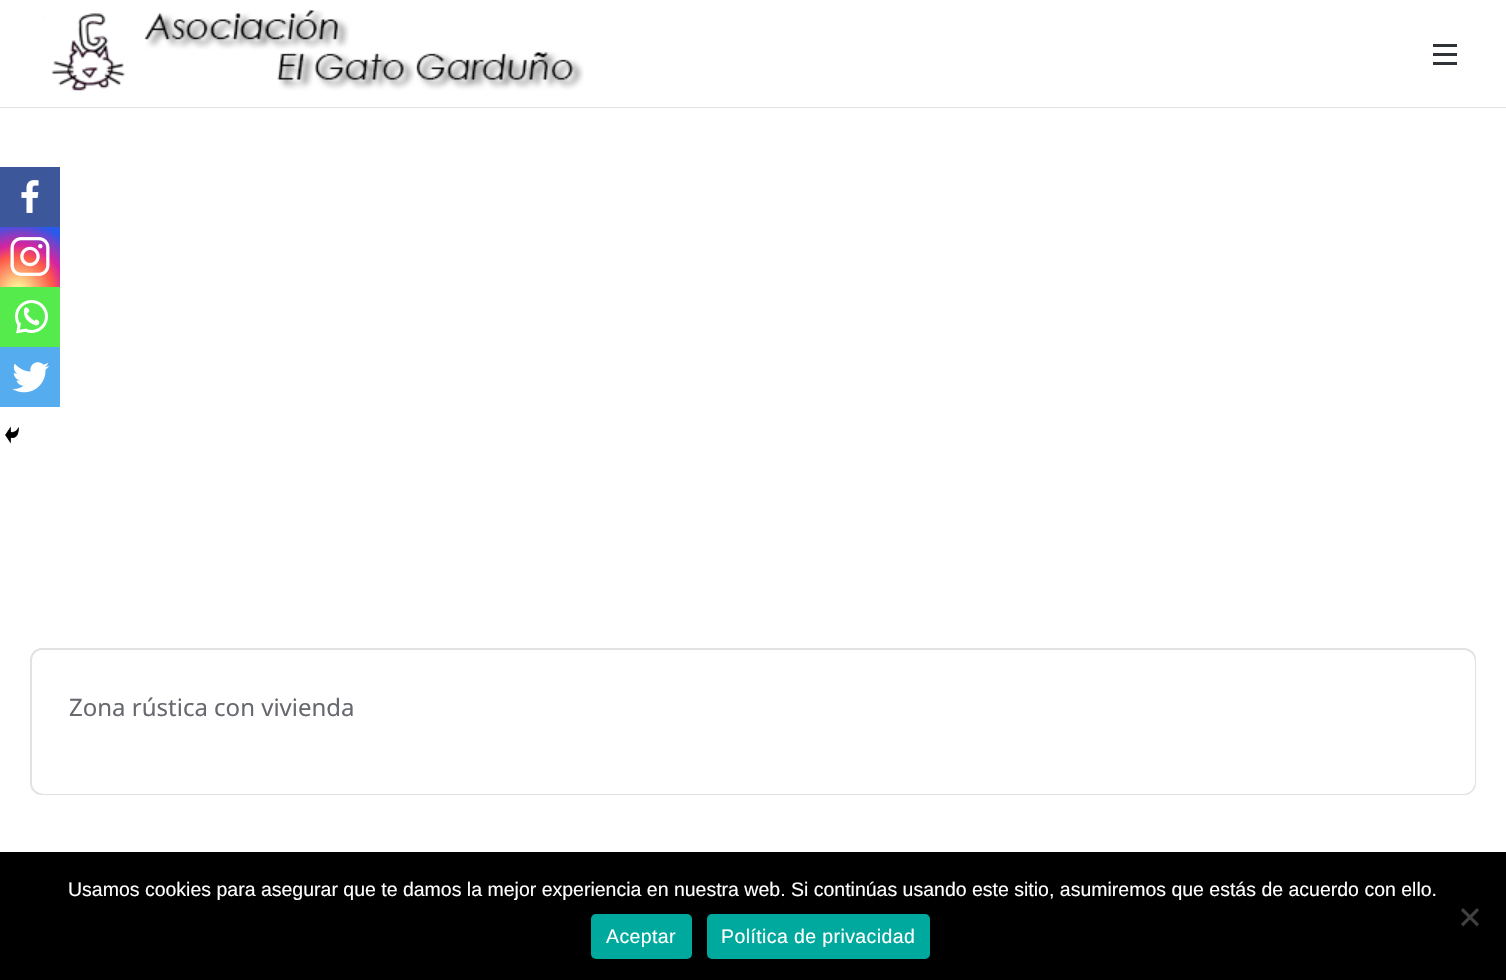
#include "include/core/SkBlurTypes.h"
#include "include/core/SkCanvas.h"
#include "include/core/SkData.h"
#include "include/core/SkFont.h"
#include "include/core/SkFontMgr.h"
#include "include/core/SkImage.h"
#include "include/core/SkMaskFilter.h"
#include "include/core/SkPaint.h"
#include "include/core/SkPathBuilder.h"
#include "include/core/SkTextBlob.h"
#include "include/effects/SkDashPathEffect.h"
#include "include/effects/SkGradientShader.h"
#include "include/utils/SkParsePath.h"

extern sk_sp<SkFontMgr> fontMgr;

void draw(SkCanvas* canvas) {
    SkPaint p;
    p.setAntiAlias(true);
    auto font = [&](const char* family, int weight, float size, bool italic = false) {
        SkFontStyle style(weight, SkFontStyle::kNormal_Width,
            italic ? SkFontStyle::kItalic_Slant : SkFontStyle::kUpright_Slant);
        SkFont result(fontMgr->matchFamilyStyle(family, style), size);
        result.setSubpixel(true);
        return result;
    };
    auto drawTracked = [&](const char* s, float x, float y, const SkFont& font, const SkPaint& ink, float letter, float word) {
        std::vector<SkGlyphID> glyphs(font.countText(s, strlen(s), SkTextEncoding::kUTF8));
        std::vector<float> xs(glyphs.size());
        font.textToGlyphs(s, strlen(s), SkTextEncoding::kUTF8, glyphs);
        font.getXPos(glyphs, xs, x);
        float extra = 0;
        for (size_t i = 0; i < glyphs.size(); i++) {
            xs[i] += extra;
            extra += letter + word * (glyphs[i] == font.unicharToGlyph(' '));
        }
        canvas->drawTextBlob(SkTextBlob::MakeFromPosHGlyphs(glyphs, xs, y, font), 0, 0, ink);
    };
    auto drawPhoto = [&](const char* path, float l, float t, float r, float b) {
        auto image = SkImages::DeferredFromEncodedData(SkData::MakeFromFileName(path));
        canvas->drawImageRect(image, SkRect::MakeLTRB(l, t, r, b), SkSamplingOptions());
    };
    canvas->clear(0xFFFFFFFF);
    p.setColor(0xFFE2E2E2);
    canvas->drawRect(SkRect::MakeLTRB(0, 107, 1506, 108), p);
    drawPhoto("media/1.png", 42, 10, 584, 92);
    {
        const struct { float l, t, r, b; SkColor color; } items[] = {
            {1433, 53, 1457, 56, 0xFF2F3237},
            {1433, 44, 1457, 47, 0xFF2F3237},
            {1433, 62, 1457, 65, 0xFF2F3237},
        };
        for (auto [l, t, r, b, color] : items) {
            p.setColor(color);
            canvas->drawRect(SkRect::MakeLTRB(l, t, r, b), p);
        }
    }
    p.setStyle(SkPaint::kStroke_Style);
    p.setStrokeWidth(2);
    p.setColor(0xFFE2E2E2);
    canvas->drawRoundRect(SkRect::MakeLTRB(31, 649, 1475, 794), 11, 11, p);
    canvas->save();
    canvas->clipPath(SkPathBuilder().moveTo(43, 650).lineTo(1464, 650).cubicTo(1470, 650, 1475, 655, 1475, 661).lineTo(1475, 783).cubicTo(1475, 789, 1470, 794, 1464, 794).lineTo(43, 794).cubicTo(37, 794, 32, 789, 32, 783).lineTo(32, 661).cubicTo(32, 655, 37, 650, 43, 650).close().detach(), true);
    p.setStyle(SkPaint::kFill_Style);
    p.setColor(0xFFFFFFFF);
    canvas->drawPath(SkPathBuilder().moveTo(43, 650).lineTo(1464, 650).cubicTo(1470, 650, 1475, 655, 1475, 661).lineTo(1475, 782).cubicTo(1475, 788.5f, 1469.5f, 794, 1463, 794).lineTo(44, 794).cubicTo(37.5f, 794, 32, 788.5f, 32, 782).lineTo(32, 661).cubicTo(32, 655, 37, 650, 43, 650).close().detach(), p);
    canvas->restore();
    p.setColor(0xFF3C589A);
    canvas->drawRect(SkRect::MakeLTRB(0, 167, 60, 227), p);
    drawPhoto("media/2.png", 21, 180, 39, 213);
    {
        const SkColor colors[] = {0xFFFDF497, 0xFFFDF497, 0xFFFD5949, 0xFFD6249F, 0xFF285AEB};
        const float stops[] = {0, 0.05f, 0.45f, 0.6f, 0.9f};
        p.setShader(SkGradientShader::MakeRadial({18, 291}, 77, colors, stops, 5, SkTileMode::kClamp));
        p.setAlpha(255);
    }
    canvas->drawRect(SkRect::MakeLTRB(0, 227, 60, 287), p);
    drawPhoto("media/3.png", 10, 237, 50, 276);
    p.setShader(nullptr);
    p.setColor(0xFF55EB4C);
    canvas->drawRect(SkRect::MakeLTRB(0, 287, 60, 347), p);
    drawPhoto("media/4.png", 15, 300, 48, 334);
    p.setColor(0xFF55ACEE);
    canvas->drawRect(SkRect::MakeLTRB(0, 347, 60, 407), p);
    drawPhoto("media/5.png", 12, 362, 49, 393);
    drawPhoto("media/6.png", 5, 426, 19, 444);
    auto font1 = font("Noto Sans", 400, 24);
    p.setColor(0xFF67696F);
    canvas->drawString("Zona rústica con vivienda", 69, 716, font1, p);
    p.setColor(0xFF000000);
    canvas->drawRect(SkRect::MakeLTRB(0, 852, 1506, 980), p);
    auto font2 = font("Liberation Sans", 400, 19.5f);
    p.setColor(0xFFFFFFFF);
    canvas->drawString("Usamos cookies para asegurar que te damos la mejor experiencia en nuestra web. Si continúas usando este sitio, asumiremos que estás de acuerdo con ello.", 68, 896, font2, p);
    p.setColor(0xFF404040);
    canvas->drawPath(SkPathBuilder().moveTo(1477, 908).lineTo(1479, 910.5f).lineTo(1463, 926.5f).lineTo(1461, 924).close().detach(), p);
    canvas->drawPath(SkPathBuilder().moveTo(1461, 910.5f).lineTo(1463, 908).lineTo(1479, 924).lineTo(1477, 926.5f).close().detach(), p);
    p.setColor(0xFF00A99D);
    canvas->drawRoundRect(SkRect::MakeLTRB(591, 914, 692, 959), 5, 5, p);
    p.setColor(0xFFFFFFFF);
    drawTracked("Aceptar", 606, 943, font2, p, 0.4f, 0);
    p.setColor(0xFF00A99D);
    canvas->drawRoundRect(SkRect::MakeLTRB(707, 914, 930, 959), 5, 5, p);
    p.setColor(0xFFFFFFFF);
    drawTracked("Política de privacidad", 721, 943, font2, p, 0.4f, 0);
}
